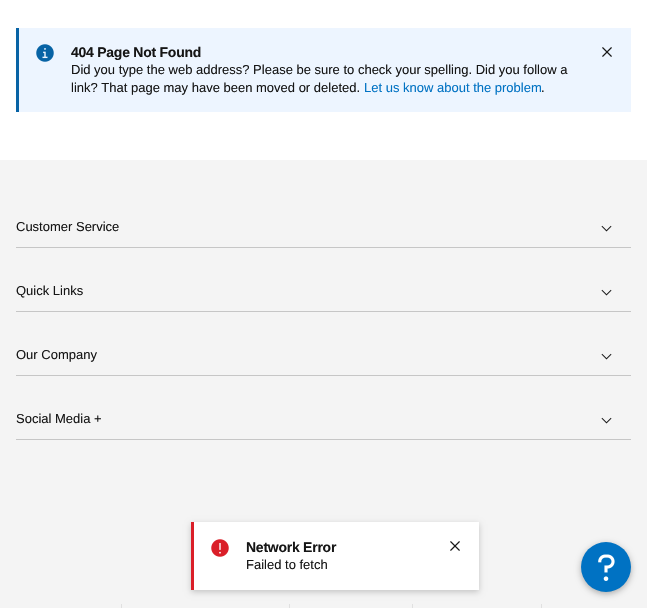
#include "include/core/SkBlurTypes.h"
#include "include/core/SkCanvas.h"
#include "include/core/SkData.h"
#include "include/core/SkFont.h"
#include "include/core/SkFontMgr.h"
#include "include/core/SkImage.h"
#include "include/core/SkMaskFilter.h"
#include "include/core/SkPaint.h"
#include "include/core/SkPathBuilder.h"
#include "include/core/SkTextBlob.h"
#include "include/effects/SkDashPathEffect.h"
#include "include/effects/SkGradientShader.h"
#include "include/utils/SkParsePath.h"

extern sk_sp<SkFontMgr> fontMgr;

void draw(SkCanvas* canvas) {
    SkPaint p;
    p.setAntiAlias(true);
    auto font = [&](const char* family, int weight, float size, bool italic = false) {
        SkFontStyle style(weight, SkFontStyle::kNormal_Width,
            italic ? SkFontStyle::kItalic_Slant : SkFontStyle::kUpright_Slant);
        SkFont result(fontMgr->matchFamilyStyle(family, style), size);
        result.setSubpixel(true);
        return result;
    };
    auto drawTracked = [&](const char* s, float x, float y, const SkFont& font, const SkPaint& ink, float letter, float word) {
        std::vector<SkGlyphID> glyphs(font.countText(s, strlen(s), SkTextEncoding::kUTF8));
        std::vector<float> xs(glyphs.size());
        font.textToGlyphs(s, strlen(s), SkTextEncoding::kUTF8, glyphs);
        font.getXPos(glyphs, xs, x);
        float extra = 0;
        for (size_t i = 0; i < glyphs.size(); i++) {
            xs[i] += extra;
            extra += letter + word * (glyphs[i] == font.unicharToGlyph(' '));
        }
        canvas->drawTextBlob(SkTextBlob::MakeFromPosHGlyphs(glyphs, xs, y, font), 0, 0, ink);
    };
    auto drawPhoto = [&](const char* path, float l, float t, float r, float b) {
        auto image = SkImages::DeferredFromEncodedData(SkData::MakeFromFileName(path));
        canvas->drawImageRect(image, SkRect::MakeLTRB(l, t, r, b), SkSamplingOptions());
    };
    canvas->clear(0xFFFFFFFF);
    p.setColor(0xFFF4F4F4);
    canvas->drawRect(SkRect::MakeLTRB(0, 160, 647, 608), p);
    p.setColor(0xFFC6C6C6);
    canvas->drawRect(SkRect::MakeLTRB(16, 247, 631, 248), p);
    auto font1 = font("Liberation Sans", 400, 13);
    p.setColor(0xFF161616);
    canvas->drawString("Customer Service", 16, 231, font1, p);
    drawPhoto("media/1.png", 601, 225, 612, 232);
    p.setColor(0xFFC6C6C6);
    canvas->drawRect(SkRect::MakeLTRB(16, 311, 631, 312), p);
    p.setColor(0xFF161616);
    canvas->drawString("Quick Links", 16, 295, font1, p);
    drawPhoto("media/1.png", 601, 289, 612, 296);
    p.setColor(0xFFC6C6C6);
    canvas->drawRect(SkRect::MakeLTRB(16, 375, 631, 376), p);
    p.setColor(0xFF161616);
    canvas->drawString("Our Company", 16, 359, font1, p);
    drawPhoto("media/1.png", 601, 353, 612, 360);
    p.setColor(0xFFC6C6C6);
    canvas->drawRect(SkRect::MakeLTRB(16, 439, 631, 440), p);
    p.setColor(0xFF161616);
    canvas->drawString("Social Media +", 16, 423, font1, p);
    drawPhoto("media/1.png", 601, 417, 612, 424);
    {
        const struct { float l, t, r, b; SkColor color; } items[] = {
            {121, 604, 122, 608, 0xFFE0E0E0},
            {289, 604, 290, 608, 0xFFE0E0E0},
            {412, 604, 413, 608, 0xFFE0E0E0},
            {541, 604, 542, 608, 0xFFE0E0E0},
            {19, 28, 631, 112, 0xFFEDF5FF},
            {16, 28, 19, 112, 0xFF0763A5},
        };
        for (auto [l, t, r, b, color] : items) {
            p.setColor(color);
            canvas->drawRect(SkRect::MakeLTRB(l, t, r, b), p);
        }
    }
    drawPhoto("media/2.png", 36, 44, 54, 62);
    auto font2 = font("Liberation Sans", 700, 14);
    p.setColor(0xFF161616);
    drawTracked("404 Page Not Found", 71, 57, font2, p, -0.25f, 0);
    canvas->drawString("Did you type the web address? Please be sure to check your spelling. Did you follow a", 71, 74, font1, p);
    canvas->drawString("link? That page may have been moved or deleted.", 71, 92, font1, p);
    p.setColor(0xFF0072C3);
    canvas->drawString("Let us know about the problem", 364, 92, font1, p);
    p.setColor(0xFF161616);
    canvas->drawString(".", 541, 92, font1, p);
    drawPhoto("media/3.png", 602, 47, 612, 57);
    p.setColor(0x33000000);
    p.setMaskFilter(SkMaskFilter::MakeBlur(kNormal_SkBlurStyle, 3));
    canvas->drawRect(SkRect::MakeLTRB(191, 524, 479, 592), p);
    p.setMaskFilter(nullptr);
    p.setColor(0xFFFFFFFF);
    canvas->drawRect(SkRect::MakeLTRB(194, 522, 479, 590), p);
    p.setColor(0xFFDA1E28);
    canvas->drawRect(SkRect::MakeLTRB(191, 522, 194, 590), p);
    drawPhoto("media/4.png", 211, 539, 229, 557);
    p.setColor(0xFF161616);
    drawTracked("Network Error", 246, 552, font2, p, -0.25f, 0);
    canvas->drawString("Failed to fetch", 246, 569, font1, p);
    drawPhoto("media/5.png", 450, 541, 460, 551);
    p.setColor(0x4D000000);
    p.setMaskFilter(SkMaskFilter::MakeBlur(kNormal_SkBlurStyle, 3));
    canvas->drawRoundRect(SkRect::MakeLTRB(581, 544, 631, 594), 25, 25, p);
    p.setMaskFilter(nullptr);
    p.setColor(0xFF0072C3);
    canvas->drawCircle(606, 567, 25, p);
    drawPhoto("media/6.png", 598, 554, 615, 581);
}
